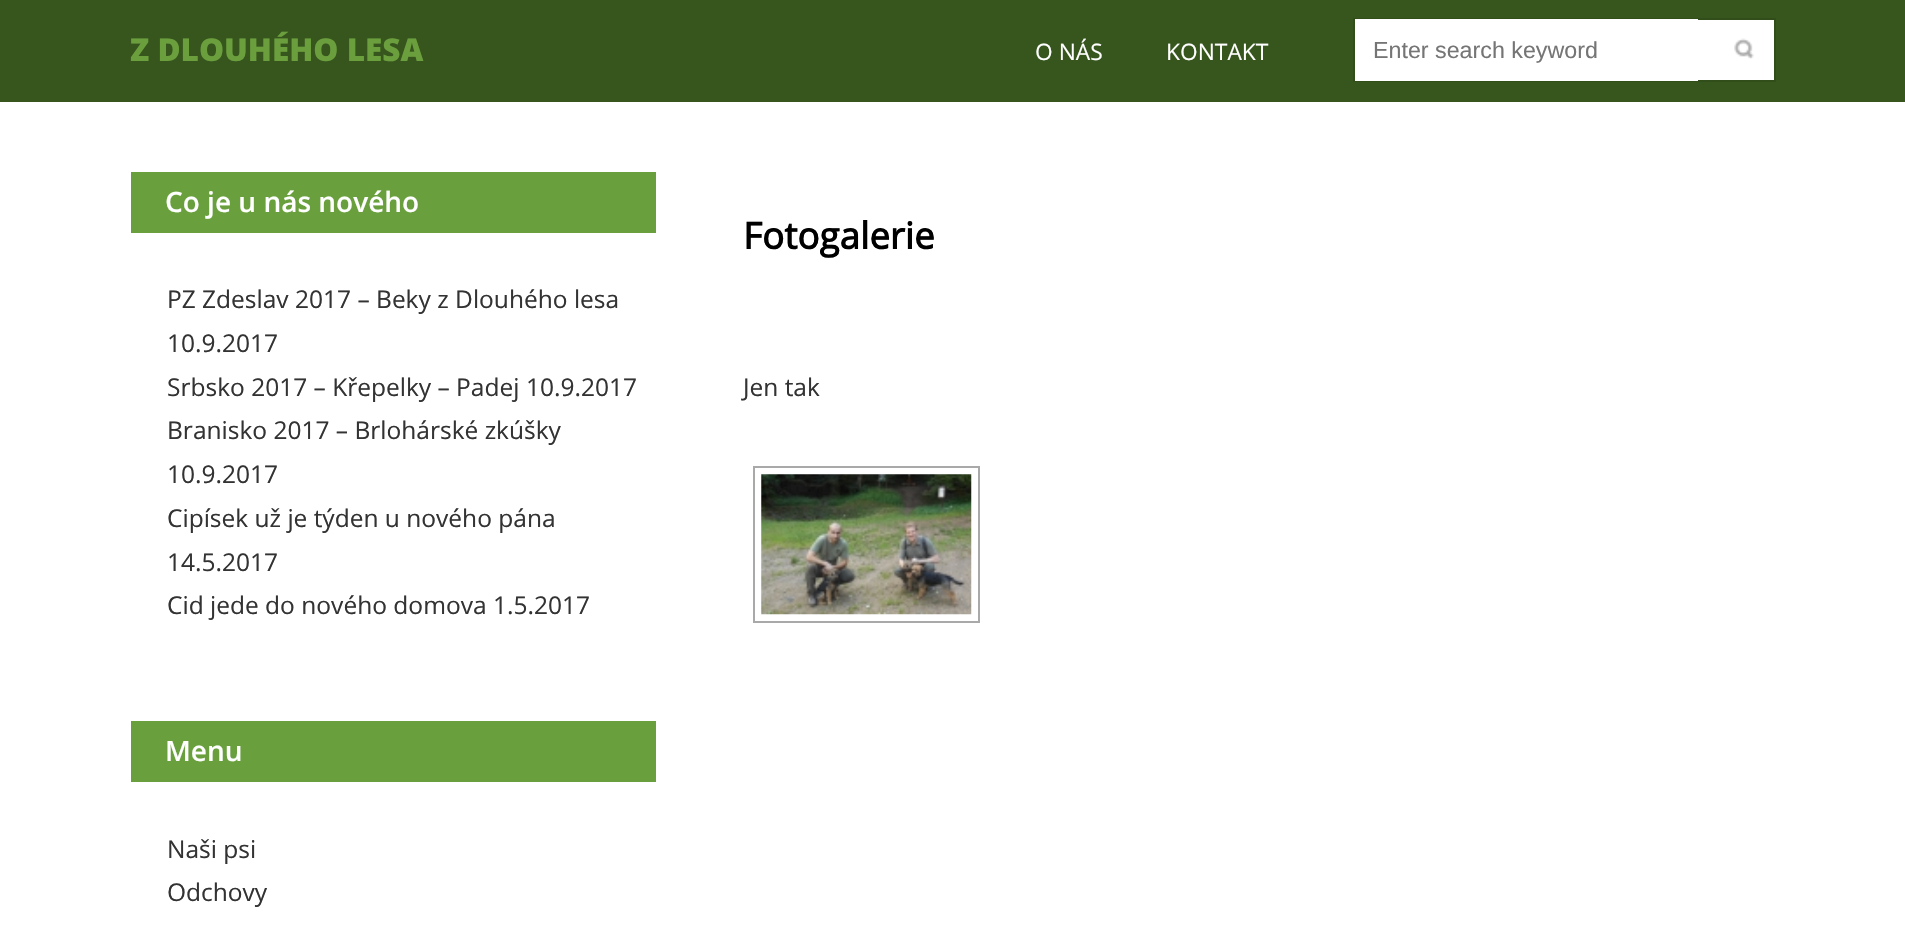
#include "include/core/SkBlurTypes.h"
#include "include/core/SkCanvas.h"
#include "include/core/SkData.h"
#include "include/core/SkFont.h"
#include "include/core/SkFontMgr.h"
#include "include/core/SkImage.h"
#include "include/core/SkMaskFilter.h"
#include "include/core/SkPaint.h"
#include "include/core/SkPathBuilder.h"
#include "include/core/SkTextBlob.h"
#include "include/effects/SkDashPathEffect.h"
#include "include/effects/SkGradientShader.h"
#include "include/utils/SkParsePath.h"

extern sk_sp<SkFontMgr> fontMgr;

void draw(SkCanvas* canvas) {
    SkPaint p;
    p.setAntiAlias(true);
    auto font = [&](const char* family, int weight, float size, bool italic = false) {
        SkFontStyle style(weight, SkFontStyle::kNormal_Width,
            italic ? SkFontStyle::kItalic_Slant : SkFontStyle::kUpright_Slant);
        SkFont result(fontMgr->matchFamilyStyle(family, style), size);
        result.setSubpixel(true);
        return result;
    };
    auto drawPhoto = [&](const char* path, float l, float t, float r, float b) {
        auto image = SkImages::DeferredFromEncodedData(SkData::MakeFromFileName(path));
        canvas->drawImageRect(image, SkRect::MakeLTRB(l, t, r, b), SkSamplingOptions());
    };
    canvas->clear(0xFFFFFFFF);
    p.setColor(0xFF37561D);
    canvas->drawRect(SkRect::MakeLTRB(0, 0, 1905, 102), p);
    auto font1 = font("Open Sans", 800, 31.5f);
    p.setColor(0xFF6B9F3D);
    canvas->drawString("Z DLOUHÉHO LESA", 130, 61, font1, p);
    auto font2 = font("Open Sans", 400, 22.75f);
    p.setColor(0xFFFFFFFF);
    canvas->drawString("O NÁS", 1035, 60, font2, p);
    canvas->drawString("KONTAKT", 1166, 60, font2, p);
    canvas->drawRect(SkRect::MakeLTRB(1698, 20, 1774, 80), p);
    p.setStyle(SkPaint::kStroke_Style);
    p.setStrokeWidth(2);
    p.setColor(0xFF314D1A);
    canvas->drawRect(SkRect::MakeLTRB(1354, 19, 1775, 81), p);
    p.setStyle(SkPaint::kFill_Style);
    p.setColor(0xFFFFFFFF);
    canvas->drawRect(SkRect::MakeLTRB(1355, 19, 1698, 81), p);
    auto font3 = font("Liberation Sans", 400, 23.25f);
    p.setColor(0xFF757575);
    canvas->drawString("Enter search keyword", 1373, 58, font3, p);
    drawPhoto("media/1.png", 1734, 38, 1754, 59);
    p.setColor(0xFF69A03D);
    canvas->drawRect(SkRect::MakeLTRB(131, 172, 656, 233), p);
    auto font4 = font("Open Sans", 600, 28);
    p.setColor(0xFFFFFFFF);
    canvas->drawString("Co je u nás nového", 165, 212, font4, p);
    auto font5 = font("Open Sans", 400, 24.5f);
    p.setColor(0xFF333333);
    {
        const struct { const char* s; float x, y; } items[] = {
            {"PZ Zdeslav 2017 – Beky z Dlouhého lesa", 167, 308},
            {"10.9.2017", 167, 352},
            {"Srbsko 2017 – Křepelky – Padej", 167, 396},
            {"10.9.2017", 526, 396},
            {"Branisko 2017 – Brlohárské zkúšky", 167, 439},
            {"10.9.2017", 167, 483},
            {"Cipísek už je týden u nového pána", 167, 527},
            {"14.5.2017", 167, 571},
            {"Cid jede do nového domova", 167, 614},
            {"1.5.2017", 493, 614},
        };
        for (auto [s, x, y] : items) {
            canvas->drawString(s, x, y, font5, p);
        }
    }
    p.setColor(0xFF69A03D);
    canvas->drawRect(SkRect::MakeLTRB(131, 721, 656, 782), p);
    p.setColor(0xFFFFFFFF);
    canvas->drawString("Menu", 165, 761, font4, p);
    p.setColor(0xFF333333);
    canvas->drawString("Naši psi", 167, 858, font5, p);
    canvas->drawString("Odchovy", 167, 901, font5, p);
    auto font6 = font("Open Sans", 700, 36.75f);
    p.setColor(0xFF000000);
    canvas->drawString("Fotogalerie", 743, 249, font6, p);
    p.setColor(0xFF333333);
    canvas->drawString("Jen tak", 743, 396, font5, p);
    p.setStyle(SkPaint::kStroke_Style);
    p.setColor(0xFFA9A9A9);
    canvas->drawRect(SkRect::MakeLTRB(754, 467, 979, 622), p);
    drawPhoto("media/2.png", 761, 474, 972, 615);
}
